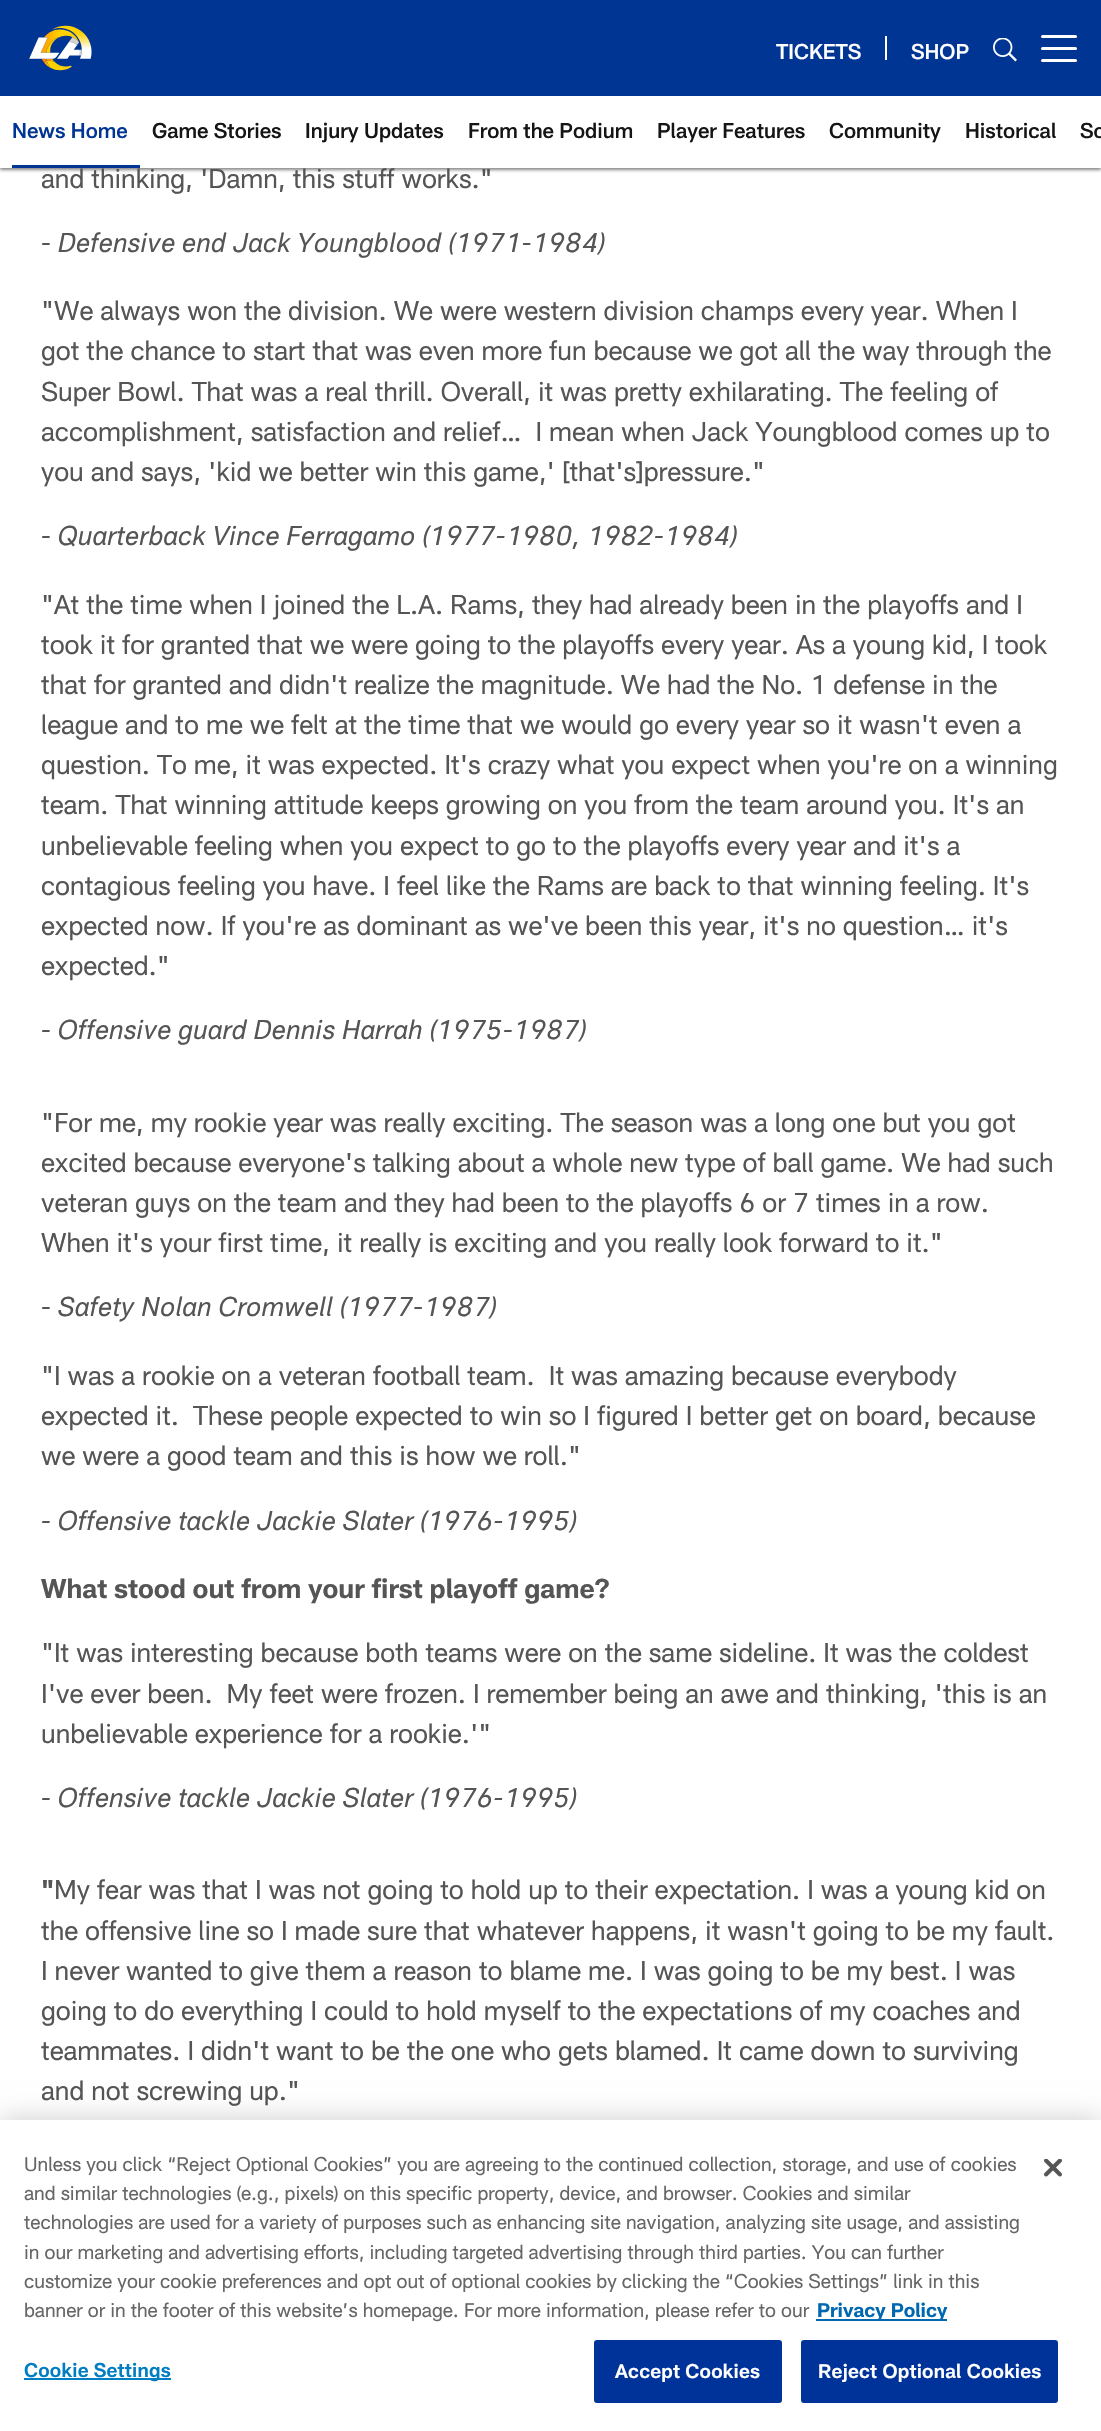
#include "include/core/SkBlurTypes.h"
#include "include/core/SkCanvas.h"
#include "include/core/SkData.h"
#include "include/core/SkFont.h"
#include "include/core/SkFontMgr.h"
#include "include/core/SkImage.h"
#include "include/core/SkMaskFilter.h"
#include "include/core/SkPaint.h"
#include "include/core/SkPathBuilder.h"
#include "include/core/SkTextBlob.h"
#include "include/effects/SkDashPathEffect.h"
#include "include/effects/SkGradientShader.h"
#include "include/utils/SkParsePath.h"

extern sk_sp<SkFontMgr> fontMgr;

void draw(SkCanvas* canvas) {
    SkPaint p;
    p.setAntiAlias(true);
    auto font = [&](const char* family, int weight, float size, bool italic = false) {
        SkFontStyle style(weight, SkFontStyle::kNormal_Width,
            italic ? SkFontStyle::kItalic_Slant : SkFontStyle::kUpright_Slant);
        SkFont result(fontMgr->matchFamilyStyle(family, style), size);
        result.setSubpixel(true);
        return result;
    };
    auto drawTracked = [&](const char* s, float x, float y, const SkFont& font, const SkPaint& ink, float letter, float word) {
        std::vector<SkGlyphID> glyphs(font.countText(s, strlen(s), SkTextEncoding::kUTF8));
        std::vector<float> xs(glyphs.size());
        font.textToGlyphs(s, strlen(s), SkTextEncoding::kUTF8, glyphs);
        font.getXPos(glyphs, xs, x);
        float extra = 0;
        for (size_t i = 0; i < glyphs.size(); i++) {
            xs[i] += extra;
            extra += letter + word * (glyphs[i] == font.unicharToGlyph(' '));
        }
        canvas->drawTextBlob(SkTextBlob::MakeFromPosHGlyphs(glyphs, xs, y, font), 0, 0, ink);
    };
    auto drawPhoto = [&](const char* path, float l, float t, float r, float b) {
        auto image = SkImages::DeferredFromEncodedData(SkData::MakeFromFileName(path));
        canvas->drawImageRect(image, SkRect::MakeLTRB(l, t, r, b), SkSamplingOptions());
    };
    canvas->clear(0xFFFFFFFF);
    p.setColor(0xFF003594);
    canvas->drawRect(SkRect::MakeLTRB(0, 0, 1101, 96), p);
    drawPhoto("media/1.png", 29, 25, 92, 71);
    auto font1 = font("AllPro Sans", 500, 21);
    p.setColor(0xFFFFFFFF);
    canvas->drawString("TICKETS", 776, 59, font1, p);
    canvas->drawRect(SkRect::MakeLTRB(885, 36, 887, 60), p);
    canvas->drawString("SHOP", 911, 59, font1, p);
    drawPhoto("media/2.png", 993, 38, 1017, 62);
    canvas->drawRoundRect(SkRect::MakeLTRB(1041, 47, 1077, 50), 1.5f, 1.5f, p);
    canvas->drawRoundRect(SkRect::MakeLTRB(1041, 35, 1077, 38), 1.5f, 1.5f, p);
    canvas->drawRoundRect(SkRect::MakeLTRB(1041, 59, 1077, 62), 1.5f, 1.5f, p);
    p.setColor(0x78000000);
    p.setMaskFilter(SkMaskFilter::MakeBlur(kNormal_SkBlurStyle, 1.5f));
    canvas->drawRect(SkRect::MakeLTRB(0, 98, 1101, 170), p);
    p.setMaskFilter(nullptr);
    p.setColor(0xFFFFFFFF);
    canvas->drawRect(SkRect::MakeLTRB(0, 96, 1101, 168), p);
    p.setColor(0xFF003594);
    canvas->drawRect(SkRect::MakeLTRB(12, 165, 140, 168), p);
    canvas->drawString("News Home", 12, 138, font1, p);
    p.setColor(0xFF151515);
    {
        const struct { const char* s; float x, y; } items[] = {
            {"Game Stories", 152, 138},
            {"Injury Updates", 305, 138},
            {"From the Podium", 468, 138},
            {"Player Features", 657, 138},
            {"Community", 829, 138},
            {"Historical", 965, 138},
            {"So", 1080, 138},
        };
        for (auto [s, x, y] : items) {
            canvas->drawString(s, x, y, font1, p);
        }
    }
    auto font2 = font("AllPro Sans", 400, 26.75f);
    p.setColor(0xFF555555);
    canvas->drawString("and thinking, 'Damn, this stuff works.\"", 41, 188, font2, p);
    auto font3 = font("AllPro Sans", 400, 26.75f, true);
    canvas->drawString("- Defensive end Jack Youngblood (1971-1984)", 41, 252, font3, p);
    {
        const struct { const char* s; float x, y; } items[] = {
            {"\"We always won the division. We were western division champs every year. When I", 41, 320},
            {"got the chance to start that was even more fun because we got all the way through the", 41, 360},
            {"Super Bowl. That was a real thrill. Overall, it was pretty exhilarating. The feeling of", 41, 401},
            {"accomplishment, satisfaction and relief…  I mean when Jack Youngblood comes up to", 41, 441},
            {"you and says, 'kid we better win this game,' [that's]pressure.\"", 41, 481},
        };
        for (auto [s, x, y] : items) {
            canvas->drawString(s, x, y, font2, p);
        }
    }
    canvas->drawString("- Quarterback Vince Ferragamo (1977-1980, 1982-1984)", 41, 545, font3, p);
    {
        const struct { const char* s; float x, y; } items[] = {
            {"\"At the time when I joined the L.A. Rams, they had already been in the playoffs and I", 41, 614},
            {"took it for granted that we were going to the playoffs every year. As a young kid, I took", 41, 654},
            {"that for granted and didn't realize the magnitude. We had the No. 1 defense in the", 41, 694},
            {"league and to me we felt at the time that we would go every year so it wasn't even a", 41, 734},
            {"question. To me, it was expected. It's crazy what you expect when you're on a winning", 41, 774},
            {"team. That winning attitude keeps growing on you from the team around you. It's an", 41, 814},
            {"unbelievable feeling when you expect to go to the playoffs every year and it's a", 41, 855},
            {"contagious feeling you have. I feel like the Rams are back to that winning feeling. It's", 41, 895},
            {"expected now. If you're as dominant as we've been this year, it's no question… it's", 41, 935},
            {"expected.\"", 41, 975},
        };
        for (auto [s, x, y] : items) {
            canvas->drawString(s, x, y, font2, p);
        }
    }
    canvas->drawString("- Offensive guard Dennis Harrah (1975-1987)", 41, 1039, font3, p);
    {
        const struct { const char* s; float x, y; } items[] = {
            {"\"For me, my rookie year was really exciting. The season was a long one but you got", 41, 1132},
            {"excited because everyone's talking about a whole new type of ball game. We had such", 41, 1172},
            {"veteran guys on the team and they had been to the playoffs 6 or 7 times in a row.", 41, 1212},
            {"When it's your first time, it really is exciting and you really look forward to it.\"", 41, 1252},
        };
        for (auto [s, x, y] : items) {
            canvas->drawString(s, x, y, font2, p);
        }
    }
    canvas->drawString("- Safety Nolan Cromwell (1977-1987)", 41, 1316, font3, p);
    {
        const struct { const char* s; float x, y; } items[] = {
            {"\"I was a rookie on a veteran football team.  It was amazing because everybody", 41, 1385},
            {"expected it.  These people expected to win so I figured I better get on board, because", 41, 1425},
            {"we were a good team and this is how we roll.\"", 41, 1465},
        };
        for (auto [s, x, y] : items) {
            canvas->drawString(s, x, y, font2, p);
        }
    }
    canvas->drawString("- Offensive tackle Jackie Slater (1976-1995)", 41, 1530, font3, p);
    auto font4 = font("AllPro Sans", 700, 26.75f);
    canvas->drawString("What stood out from your first playoff game?", 41, 1598, font4, p);
    {
        const struct { const char* s; float x, y; } items[] = {
            {"\"It was interesting because both teams were on the same sideline. It was the coldest", 41, 1662},
            {"I've ever been.  My feet were frozen. I remember being an awe and thinking, 'this is an", 41, 1703},
            {"unbelievable experience for a rookie.'\"", 41, 1743},
        };
        for (auto [s, x, y] : items) {
            canvas->drawString(s, x, y, font2, p);
        }
    }
    canvas->drawString("- Offensive tackle Jackie Slater (1976-1995)", 41, 1807, font3, p);
    canvas->drawString("\"", 41, 1899, font4, p);
    {
        const struct { const char* s; float x, y; } items[] = {
            {"My fear was that I was not going to hold up to their expectation. I was a young kid on", 54, 1899},
            {"the offensive line so I made sure that whatever happens, it wasn't going to be my fault.", 41, 1940},
            {"I never wanted to give them a reason to blame me. I was going to be my best. I was", 41, 1980},
            {"going to do everything I could to hold myself to the expectations of my coaches and", 41, 2020},
            {"teammates. I didn't want to be the one who gets blamed. It came down to surviving", 41, 2060},
            {"and not screwing up.\"", 41, 2100},
        };
        for (auto [s, x, y] : items) {
            canvas->drawString(s, x, y, font2, p);
        }
    }
    p.setColor(0x33000000);
    p.setMaskFilter(SkMaskFilter::MakeBlur(kNormal_SkBlurStyle, 13.5f));
    canvas->drawRect(SkRect::MakeLTRB(0, 2120, 1101, 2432), p);
    p.setMaskFilter(nullptr);
    p.setColor(0xFFFFFFFF);
    canvas->drawRect(SkRect::MakeLTRB(0, 2120, 1101, 2431), p);
    auto font5 = font("AllPro Sans", 400, 19.5f);
    p.setColor(0xFF666666);
    {
        const struct { const char* s; float x, y; } items[] = {
            {"Unless you click “Reject Optional Cookies” you are agreeing to the continued collection, storage, and use of cookies", 24, 2171},
            {"and similar technologies (e.g., pixels) on this specific property, device, and browser. Cookies and similar", 24, 2200},
            {"technologies are used for a variety of purposes such as enhancing site navigation, analyzing site usage, and assisting", 24, 2229},
            {"in our marketing and advertising efforts, including targeted advertising through third parties. You can further", 24, 2259},
            {"customize your cookie preferences and opt out of optional cookies by clicking the “Cookies Settings” link in this", 24, 2288},
            {"banner or in the footer of this website’s homepage. For more information, please refer to our", 24, 2317},
        };
        for (auto [s, x, y] : items) {
            canvas->drawString(s, x, y, font5, p);
        }
    }
    p.setColor(0xFF0067B1);
    canvas->drawRect(SkRect::MakeLTRB(816, 2319, 947, 2321), p);
    auto font6 = font("AllPro Sans", 700, 19.5f);
    canvas->drawString("Privacy Policy", 817, 2317, font6, p);
    p.setColor(0xFF007DC3);
    canvas->drawRect(SkRect::MakeLTRB(24, 2378, 171, 2380), p);
    auto font7 = font("AllPro Sans", 600, 19.5f);
    drawTracked("Cookie Settings", 24, 2377, font7, p, 0.2f, 0);
    p.setColor(0xFF003399);
    canvas->drawRoundRect(SkRect::MakeLTRB(595, 2341, 781, 2402), 2, 2, p);
    p.setStyle(SkPaint::kStroke_Style);
    p.setStrokeWidth(2);
    canvas->drawRoundRect(SkRect::MakeLTRB(595, 2341, 781, 2402), 2, 2, p);
    p.setStyle(SkPaint::kFill_Style);
    p.setColor(0xFFFFFFFF);
    drawTracked("Accept Cookies", 615, 2378, font7, p, 0.2f, 0);
    p.setColor(0xFF003399);
    canvas->drawRoundRect(SkRect::MakeLTRB(802, 2341, 1057, 2402), 2, 2, p);
    p.setStyle(SkPaint::kStroke_Style);
    canvas->drawRoundRect(SkRect::MakeLTRB(802, 2341, 1057, 2402), 2, 2, p);
    p.setStyle(SkPaint::kFill_Style);
    p.setColor(0xFFFFFFFF);
    drawTracked("Reject Optional Cookies", 818, 2378, font7, p, 0.2f, 0);
    drawPhoto("media/3.png", 1044, 2159, 1062, 2177);
}
